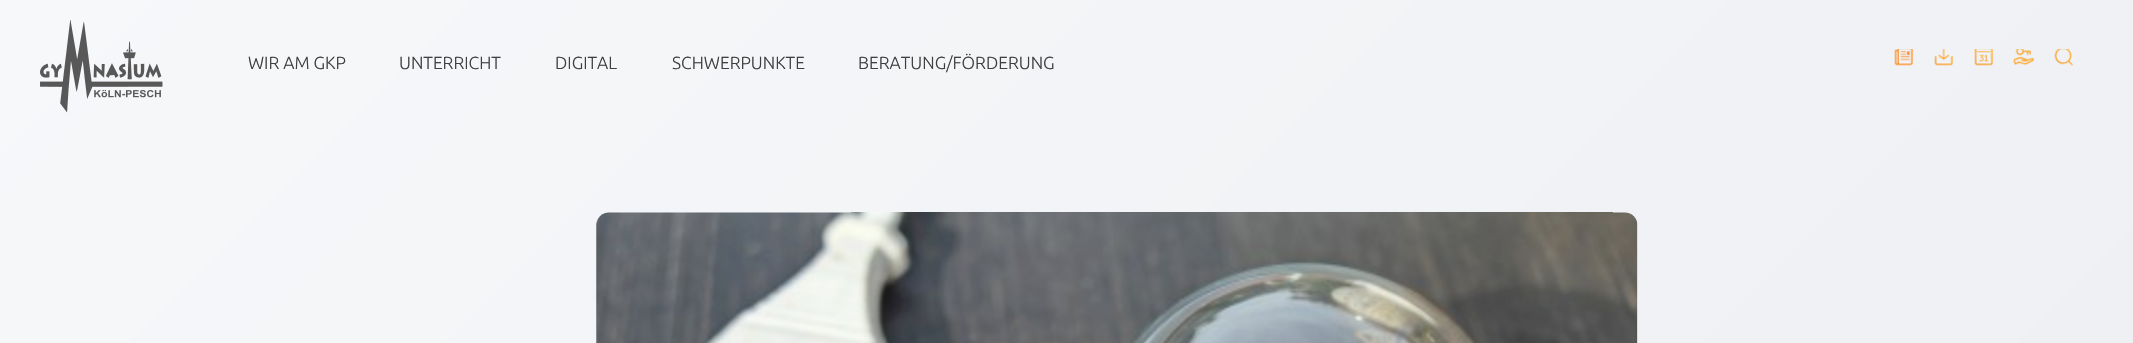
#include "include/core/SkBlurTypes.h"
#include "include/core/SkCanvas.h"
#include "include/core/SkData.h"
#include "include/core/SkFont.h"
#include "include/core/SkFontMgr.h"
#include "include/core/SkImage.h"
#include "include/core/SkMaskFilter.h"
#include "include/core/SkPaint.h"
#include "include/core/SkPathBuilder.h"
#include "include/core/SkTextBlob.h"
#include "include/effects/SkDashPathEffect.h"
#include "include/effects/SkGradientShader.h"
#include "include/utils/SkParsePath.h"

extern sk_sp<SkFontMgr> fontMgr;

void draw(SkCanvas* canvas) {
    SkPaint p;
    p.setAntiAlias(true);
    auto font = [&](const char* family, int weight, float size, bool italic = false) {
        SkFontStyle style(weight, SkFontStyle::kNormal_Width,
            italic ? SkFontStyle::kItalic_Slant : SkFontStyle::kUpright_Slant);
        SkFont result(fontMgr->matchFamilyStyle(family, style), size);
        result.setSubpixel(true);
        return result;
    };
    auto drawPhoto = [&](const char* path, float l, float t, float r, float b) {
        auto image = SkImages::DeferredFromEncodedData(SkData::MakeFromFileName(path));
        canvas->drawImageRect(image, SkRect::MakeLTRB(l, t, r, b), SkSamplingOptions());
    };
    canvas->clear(0xFFFFFFFF);
    {
        const SkColor colors[] = {0xFFF7F8FA, 0xFFE6E8ED};
        const float stops[] = {0, 1};
        const SkPoint ends[] = {{-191, 191}, {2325, 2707}};
        p.setShader(SkGradientShader::MakeLinear(ends, colors, stops, 2, SkTileMode::kClamp));
        p.setAlpha(255);
    }
    canvas->drawRect(SkRect::MakeLTRB(0, 0, 2133, 343), p);
    drawPhoto("media/1.png", 40, 20, 163, 113);
    auto font1 = font("Ubuntu", 300, 17.5f);
    p.setShader(nullptr);
    p.setColor(0xFF3E3F3F);
    {
        const struct { const char* s; float x, y; } items[] = {
            {"WIR AM GKP", 248, 69},
            {"UNTERRICHT", 399, 69},
            {"DIGITAL", 555, 69},
            {"SCHWERPUNKTE", 672, 69},
            {"BERATUNG/FÖRDERUNG", 858, 69},
        };
        for (auto [s, x, y] : items) {
            canvas->drawString(s, x, y, font1, p);
        }
    }
    drawPhoto("media/2.png", 1894, 49, 1913, 66);
    drawPhoto("media/3.png", 1934, 49, 1953, 66);
    drawPhoto("media/4.png", 1974, 49, 1993, 66);
    drawPhoto("media/5.png", 2013, 49, 2034, 66);
    drawPhoto("media/6.png", 2054, 49, 2073, 66);
    drawPhoto("media/7.png", 596, 212, 1638, 343);
}
